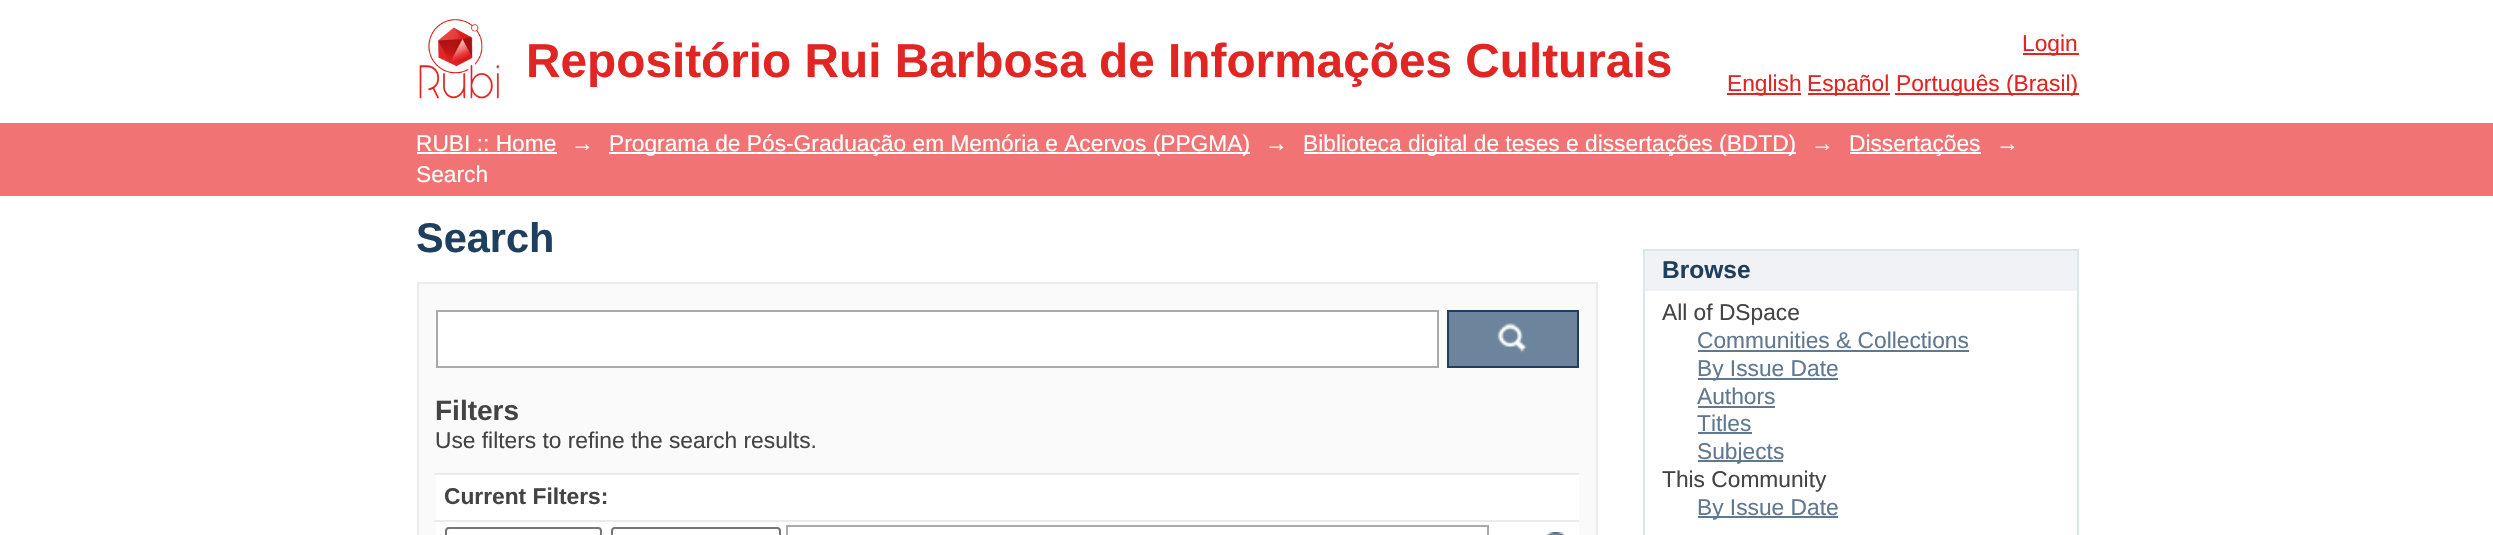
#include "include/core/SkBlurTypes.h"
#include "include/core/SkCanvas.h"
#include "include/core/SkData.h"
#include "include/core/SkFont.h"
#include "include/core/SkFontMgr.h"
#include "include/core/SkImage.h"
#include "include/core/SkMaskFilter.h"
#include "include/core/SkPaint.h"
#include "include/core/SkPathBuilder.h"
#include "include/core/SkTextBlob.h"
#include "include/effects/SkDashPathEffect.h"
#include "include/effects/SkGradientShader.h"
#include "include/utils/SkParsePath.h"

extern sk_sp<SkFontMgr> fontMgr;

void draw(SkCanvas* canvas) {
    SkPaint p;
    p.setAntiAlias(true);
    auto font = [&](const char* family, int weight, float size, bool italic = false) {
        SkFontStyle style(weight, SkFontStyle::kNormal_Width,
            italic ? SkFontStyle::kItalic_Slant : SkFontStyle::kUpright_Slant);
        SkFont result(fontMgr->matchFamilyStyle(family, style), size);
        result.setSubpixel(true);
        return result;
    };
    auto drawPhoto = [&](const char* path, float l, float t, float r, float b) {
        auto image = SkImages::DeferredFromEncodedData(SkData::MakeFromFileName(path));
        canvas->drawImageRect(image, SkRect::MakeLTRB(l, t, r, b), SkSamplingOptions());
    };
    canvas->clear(0xFFFFFFFF);
    drawPhoto("media/1.png", 419, 19, 500, 99);
    auto font1 = font("Liberation Sans", 700, 47.75f);
    p.setColor(0xFFE12523);
    canvas->drawString("Repositório Rui Barbosa de Informações Culturais", 526, 77, font1, p);
    canvas->drawRect(SkRect::MakeLTRB(2023, 53, 2079, 55), p);
    auto font2 = font("Liberation Sans", 400, 22.75f);
    canvas->drawString("Login", 2022, 51, font2, p);
    canvas->drawRect(SkRect::MakeLTRB(1727, 93, 1801, 95), p);
    canvas->drawString("English", 1727, 91, font2, p);
    canvas->drawRect(SkRect::MakeLTRB(1808, 93, 1890, 95), p);
    canvas->drawString("Español", 1807, 91, font2, p);
    canvas->drawRect(SkRect::MakeLTRB(1895, 93, 2079, 95), p);
    canvas->drawString("Português (Brasil)", 1896, 91, font2, p);
    p.setColor(0xFFF17374);
    canvas->drawRect(SkRect::MakeLTRB(0, 123, 2493, 196), p);
    p.setColor(0xFFFFFFFF);
    canvas->drawString("RUBI :: Home", 416, 151, font2, p);
    canvas->drawRect(SkRect::MakeLTRB(417, 152, 557, 154), p);
    canvas->drawString("→", 571, 151, font2, p);
    canvas->drawRect(SkRect::MakeLTRB(609, 152, 1250, 154), p);
    canvas->drawString("Programa de Pós-Graduação em Memória e Acervos (PPGMA)", 609, 151, font2, p);
    canvas->drawString("→", 1265, 151, font2, p);
    canvas->drawRect(SkRect::MakeLTRB(1304, 152, 1796, 154), p);
    canvas->drawString("Biblioteca digital de teses e dissertações (BDTD)", 1303, 151, font2, p);
    canvas->drawString("→", 1811, 151, font2, p);
    canvas->drawRect(SkRect::MakeLTRB(1850, 152, 1981, 154), p);
    {
        const struct { const char* s; float x, y; } items[] = {
            {"Dissertações", 1849, 151},
            {"→", 1996, 151},
            {"Search", 416, 182},
        };
        for (auto [s, x, y] : items) {
            canvas->drawString(s, x, y, font2, p);
        }
    }
    auto font3 = font("Liberation Sans", 700, 41.5f);
    p.setColor(0xFF1F3F5E);
    canvas->drawString("Search", 416, 252, font3, p);
    p.setColor(0xFFFAFAFA);
    canvas->drawRect(SkRect::MakeLTRB(418, 283, 1597, 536), p);
    p.setStyle(SkPaint::kStroke_Style);
    p.setStrokeWidth(2);
    p.setColor(0xFFEBEBEB);
    canvas->drawRect(SkRect::MakeLTRB(418, 283, 1597, 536), p);
    p.setStyle(SkPaint::kFill_Style);
    p.setColor(0xFFFFFFFF);
    canvas->drawRect(SkRect::MakeLTRB(437, 311, 1438, 367), p);
    p.setStyle(SkPaint::kStroke_Style);
    p.setColor(0xFFAAAAAA);
    canvas->drawRect(SkRect::MakeLTRB(437, 311, 1438, 367), p);
    p.setStyle(SkPaint::kFill_Style);
    p.setColor(0xFF6D859C);
    canvas->drawRect(SkRect::MakeLTRB(1449, 312, 1577, 366), p);
    drawPhoto("media/2.png", 1497, 323, 1527, 353);
    p.setStyle(SkPaint::kStroke_Style);
    p.setColor(0xFF1F3F5E);
    canvas->drawRect(SkRect::MakeLTRB(1448, 311, 1578, 367), p);
    auto font4 = font("Liberation Sans", 700, 28);
    p.setStyle(SkPaint::kFill_Style);
    p.setColor(0xFF444444);
    canvas->drawString("Filters", 435, 420, font4, p);
    canvas->drawString("Use filters to refine the search results.", 435, 448, font2, p);
    p.setColor(0xFFFFFFFF);
    canvas->drawRect(SkRect::MakeLTRB(436, 475, 1579, 535), p);
    p.setColor(0xFFEBEBEB);
    canvas->drawRect(SkRect::MakeLTRB(434, 473, 1579, 475), p);
    auto font5 = font("Liberation Sans", 700, 22.75f);
    p.setColor(0xFF444444);
    canvas->drawString("Current Filters:", 444, 504, font5, p);
    p.setColor(0xFFEBEBEB);
    canvas->drawRect(SkRect::MakeLTRB(434, 520, 1579, 522), p);
    p.setStyle(SkPaint::kStroke_Style);
    p.setColor(0xFF767676);
    canvas->drawRoundRect(SkRect::MakeLTRB(446, 528, 601, 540), 3, 3, p);
    canvas->drawRoundRect(SkRect::MakeLTRB(612, 528, 780, 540), 3, 3, p);
    p.setColor(0xFFAAAAAA);
    canvas->drawRect(SkRect::MakeLTRB(787, 526, 1488, 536), p);
    drawPhoto("media/3.png", 1546, 532, 1565, 535);
    p.setStyle(SkPaint::kFill_Style);
    {
        const struct { float l, t, r, b; SkColor color; } items[] = {
            {1645, 251, 2077, 291, 0xFFF0F2F5},
            {1643, 249, 2079, 251, 0xFFD8E8EB},
            {2077, 249, 2079, 535, 0xFFD8E8EB},
            {1643, 249, 1645, 535, 0xFFD8E8EB},
        };
        for (auto [l, t, r, b, color] : items) {
            p.setColor(color);
            canvas->drawRect(SkRect::MakeLTRB(l, t, r, b), p);
        }
    }
    auto font6 = font("Liberation Sans", 700, 24.5f);
    p.setColor(0xFF1F3F5E);
    canvas->drawString("Browse", 1662, 278, font6, p);
    p.setColor(0xFF444444);
    canvas->drawString("All of DSpace", 1662, 320, font2, p);
    p.setColor(0xFF607890);
    canvas->drawString("Communities & Collections", 1697, 348, font2, p);
    canvas->drawRect(SkRect::MakeLTRB(1698, 350, 1969, 352), p);
    canvas->drawRect(SkRect::MakeLTRB(1698, 378, 1838, 380), p);
    canvas->drawString("By Issue Date", 1697, 376, font2, p);
    canvas->drawString("Authors", 1697, 404, font2, p);
    canvas->drawRect(SkRect::MakeLTRB(1698, 406, 1775, 408), p);
    canvas->drawString("Titles", 1697, 431, font2, p);
    canvas->drawRect(SkRect::MakeLTRB(1698, 432, 1752, 434), p);
    canvas->drawRect(SkRect::MakeLTRB(1698, 460, 1783, 462), p);
    canvas->drawString("Subjects", 1697, 459, font2, p);
    p.setColor(0xFF444444);
    canvas->drawString("This Community", 1662, 487, font2, p);
    p.setColor(0xFF607890);
    canvas->drawRect(SkRect::MakeLTRB(1698, 516, 1838, 518), p);
    canvas->drawString("By Issue Date", 1697, 515, font2, p);
}
